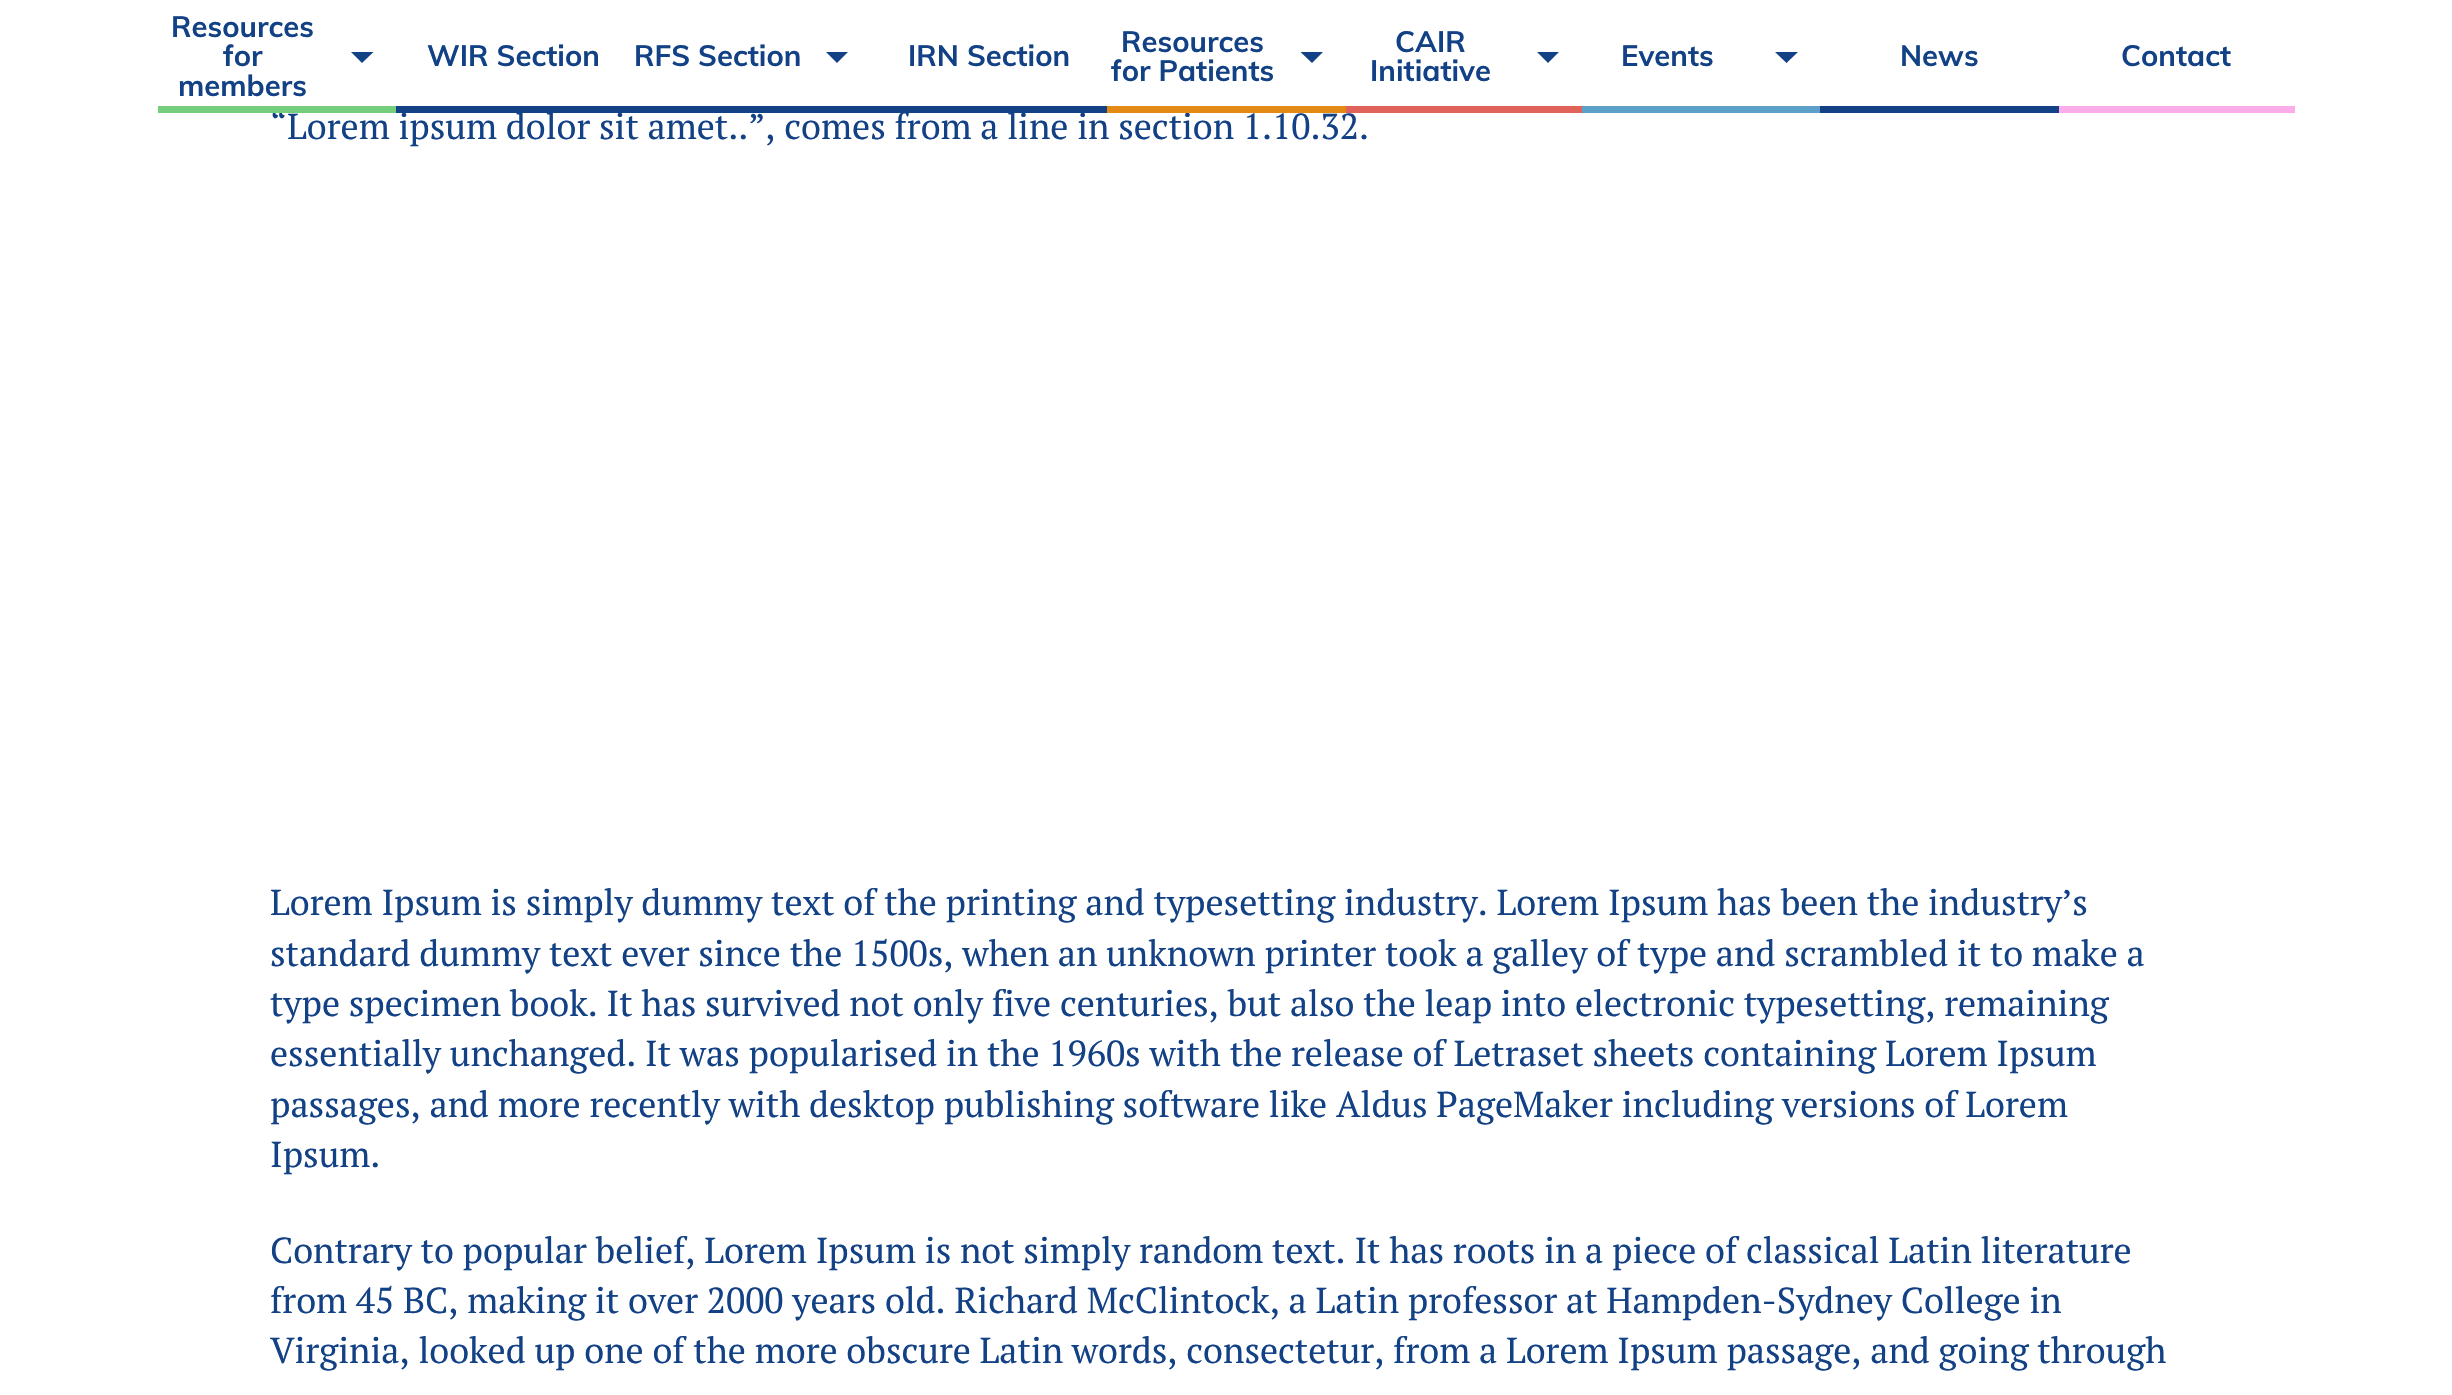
#include "include/core/SkBlurTypes.h"
#include "include/core/SkCanvas.h"
#include "include/core/SkData.h"
#include "include/core/SkFont.h"
#include "include/core/SkFontMgr.h"
#include "include/core/SkImage.h"
#include "include/core/SkMaskFilter.h"
#include "include/core/SkPaint.h"
#include "include/core/SkPathBuilder.h"
#include "include/core/SkTextBlob.h"
#include "include/effects/SkDashPathEffect.h"
#include "include/effects/SkGradientShader.h"
#include "include/utils/SkParsePath.h"

extern sk_sp<SkFontMgr> fontMgr;

void draw(SkCanvas* canvas) {
    SkPaint p;
    p.setAntiAlias(true);
    auto font = [&](const char* family, int weight, float size, bool italic = false) {
        SkFontStyle style(weight, SkFontStyle::kNormal_Width,
            italic ? SkFontStyle::kItalic_Slant : SkFontStyle::kUpright_Slant);
        SkFont result(fontMgr->matchFamilyStyle(family, style), size);
        result.setSubpixel(true);
        return result;
    };
    canvas->clear(0xFFFFFFFF);
    auto font1 = font("PT Serif", 400, 36);
    p.setColor(0xFF134185);
    canvas->drawString("“Lorem ipsum dolor sit amet..”, comes from a line in section 1.10.32.", 270, 139, font1, p);
    p.setColor(0xFFFFFFFF);
    canvas->drawRect(SkRect::MakeLTRB(273, 109, 1189, 113), p);
    auto font2 = font("Muli", 700, 29.25f);
    p.setColor(0xFF134185);
    canvas->drawString("Resources", 171, 37, font2, p);
    canvas->drawString("for", 223, 66, font2, p);
    canvas->drawPath(SkPathBuilder().moveTo(351, 52).lineTo(373.5f, 52).lineTo(362, 63).close().detach(), p);
    canvas->drawString("members", 178, 96, font2, p);
    p.setColor(0xFF75CE7C);
    canvas->drawRect(SkRect::MakeLTRB(158, 106, 396, 113), p);
    p.setColor(0xFF134185);
    canvas->drawString("WIR Section", 427, 66, font2, p);
    canvas->drawRect(SkRect::MakeLTRB(396, 106, 1107, 113), p);
    canvas->drawString("RFS Section", 634, 66, font2, p);
    canvas->drawPath(SkPathBuilder().moveTo(826, 52).lineTo(848, 52).lineTo(837, 63).close().detach(), p);
    canvas->drawString("IRN Section", 908, 66, font2, p);
    canvas->drawString("Resources", 1121, 52, font2, p);
    canvas->drawPath(SkPathBuilder().moveTo(1300.5f, 52).lineTo(1323, 52).lineTo(1312, 63).close().detach(), p);
    canvas->drawString("for Patients", 1111, 81, font2, p);
    p.setColor(0xFFE38A14);
    canvas->drawRect(SkRect::MakeLTRB(1107, 106, 1346, 113), p);
    p.setColor(0xFF134185);
    canvas->drawString("CAIR", 1395, 52, font2, p);
    canvas->drawPath(SkPathBuilder().moveTo(1537, 52).lineTo(1559, 52).lineTo(1548, 63).close().detach(), p);
    canvas->drawString("Initiative", 1370, 81, font2, p);
    p.setColor(0xFFE06359);
    canvas->drawRect(SkRect::MakeLTRB(1346, 106, 1582, 113), p);
    p.setColor(0xFF134185);
    canvas->drawString("Events", 1621, 66, font2, p);
    canvas->drawPath(SkPathBuilder().moveTo(1775, 52).lineTo(1798, 52).lineTo(1786.5f, 63).close().detach(), p);
    p.setColor(0xFF5C9FC9);
    canvas->drawRect(SkRect::MakeLTRB(1582, 106, 1820, 113), p);
    p.setColor(0xFF134185);
    canvas->drawString("News", 1900, 66, font2, p);
    canvas->drawRect(SkRect::MakeLTRB(1820, 106, 2059, 113), p);
    canvas->drawString("Contact", 2121, 66, font2, p);
    p.setColor(0xFFFCACE8);
    canvas->drawRect(SkRect::MakeLTRB(2059, 106, 2295, 113), p);
    p.setColor(0xFF134185);
    {
        const struct { const char* s; float x, y; } items[] = {
            {"Lorem Ipsum is simply dummy text of the printing and typesetting industry. Lorem Ipsum has been the industry’s", 270, 915},
            {"standard dummy text ever since the 1500s, when an unknown printer took a galley of type and scrambled it to make a", 270, 966},
            {"type specimen book. It has survived not only five centuries, but also the leap into electronic typesetting, remaining", 270, 1016},
            {"essentially unchanged. It was popularised in the 1960s with the release of Letraset sheets containing Lorem Ipsum", 270, 1066},
            {"passages, and more recently with desktop publishing software like Aldus PageMaker including versions of Lorem", 270, 1117},
            {"Ipsum.", 270, 1167},
            {"Contrary to popular belief, Lorem Ipsum is not simply random text. It has roots in a piece of classical Latin literature", 270, 1263},
            {"from 45 BC, making it over 2000 years old. Richard McClintock, a Latin professor at Hampden-Sydney College in", 270, 1313},
            {"Virginia, looked up one of the more obscure Latin words, consectetur, from a Lorem Ipsum passage, and going through", 270, 1363},
        };
        for (auto [s, x, y] : items) {
            canvas->drawString(s, x, y, font1, p);
        }
    }
}
